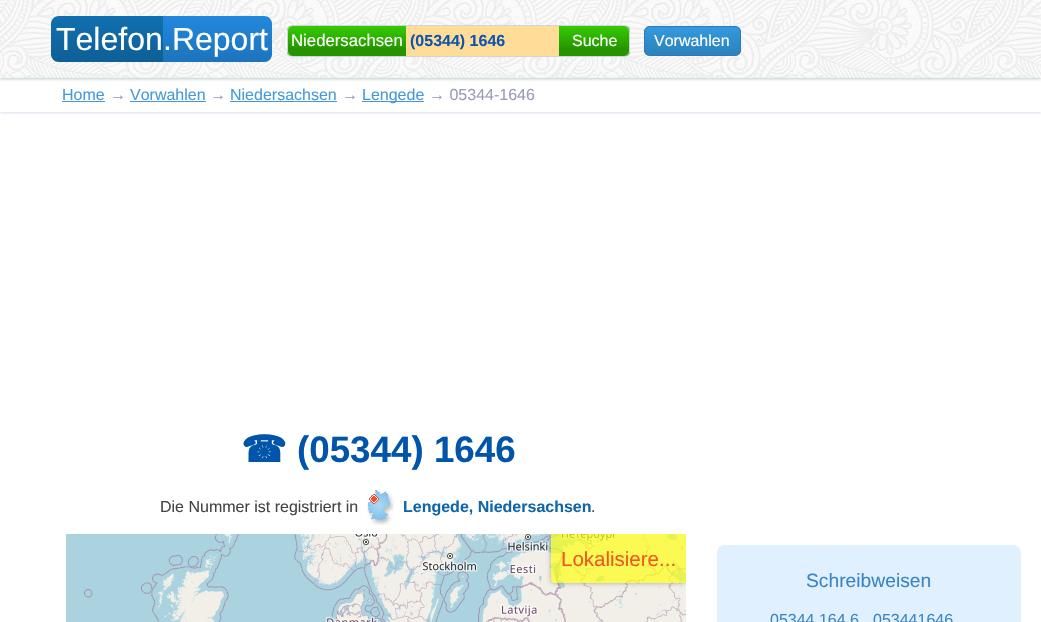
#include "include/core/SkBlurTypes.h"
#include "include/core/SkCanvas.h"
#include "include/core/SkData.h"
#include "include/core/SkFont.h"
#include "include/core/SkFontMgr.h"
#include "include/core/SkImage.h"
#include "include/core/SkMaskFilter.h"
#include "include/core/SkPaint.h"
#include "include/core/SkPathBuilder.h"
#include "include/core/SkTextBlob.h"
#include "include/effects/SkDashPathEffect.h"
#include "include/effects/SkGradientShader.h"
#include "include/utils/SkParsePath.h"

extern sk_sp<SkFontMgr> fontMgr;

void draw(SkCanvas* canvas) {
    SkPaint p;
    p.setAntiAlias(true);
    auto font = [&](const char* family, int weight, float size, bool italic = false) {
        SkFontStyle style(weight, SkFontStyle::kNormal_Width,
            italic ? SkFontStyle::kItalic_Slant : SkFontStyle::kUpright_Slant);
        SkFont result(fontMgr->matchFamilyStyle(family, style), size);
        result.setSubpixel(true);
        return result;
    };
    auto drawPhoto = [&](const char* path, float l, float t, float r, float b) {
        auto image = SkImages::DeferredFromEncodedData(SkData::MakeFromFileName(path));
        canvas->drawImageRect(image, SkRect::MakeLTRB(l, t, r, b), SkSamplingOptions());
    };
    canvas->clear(0xFFFFFFFF);
    p.setColor(0xFFBBCCCC);
    p.setMaskFilter(SkMaskFilter::MakeBlur(kNormal_SkBlurStyle, 1.5f));
    canvas->drawRect(SkRect::MakeLTRB(0, 1, 1041, 79), p);
    p.setMaskFilter(nullptr);
    drawPhoto("media/1.png", 0, 0, 1041, 78);
    p.setColor(0xFF1070B0);
    canvas->drawPath(SkPathBuilder().moveTo(59, 16).lineTo(76, 16).lineTo(76, 62).lineTo(59, 62).cubicTo(54.5f, 62, 51, 58.5f, 51, 54).lineTo(51, 24).cubicTo(51, 19.5f, 54.5f, 16, 59, 16).close().detach(), p);
    {
        const SkColor colors[] = {0x00000000, 0x26000000};
        const float stops[] = {0, 1};
        const SkPoint ends[] = {{64, 16}, {64, 62}};
        p.setShader(SkGradientShader::MakeLinear(ends, colors, stops, 2, SkTileMode::kClamp));
        p.setAlpha(255);
    }
    canvas->drawPath(SkPathBuilder().moveTo(59, 16).lineTo(76, 16).lineTo(76, 62).lineTo(59, 62).cubicTo(54.5f, 62, 51, 58.5f, 51, 54).lineTo(51, 24).cubicTo(51, 19.5f, 54.5f, 16, 59, 16).close().detach(), p);
    {
        const SkColor colors[] = {0xFF1070B0, 0xFF0E5F96};
        const float stops[] = {0, 1};
        const SkPoint ends[] = {{120, 16}, {120, 62}};
        p.setShader(SkGradientShader::MakeLinear(ends, colors, stops, 2, SkTileMode::kClamp));
        p.setAlpha(255);
    }
    canvas->drawRect(SkRect::MakeLTRB(76, 16, 163, 62), p);
    auto font1 = font("Liberation Sans", 400, 32);
    p.setShader(nullptr);
    p.setColor(0xFFFFFFFF);
    canvas->drawString("Telefon", 56, 50, font1, p);
    {
        const SkColor colors[] = {0xFF2288DD, 0xFF1D74BC};
        const float stops[] = {0, 1};
        const SkPoint ends[] = {{168, 16}, {168, 62}};
        p.setShader(SkGradientShader::MakeLinear(ends, colors, stops, 2, SkTileMode::kClamp));
        p.setAlpha(255);
    }
    canvas->drawRect(SkRect::MakeLTRB(163, 16, 172, 62), p);
    {
        const SkColor colors[] = {0xFF2288DD, 0xFF1D74BC};
        const float stops[] = {0, 1};
        const SkPoint ends[] = {{184, 16}, {184, 62}};
        p.setShader(SkGradientShader::MakeLinear(ends, colors, stops, 2, SkTileMode::kClamp));
        p.setAlpha(255);
    }
    canvas->drawRect(SkRect::MakeLTRB(172, 16, 195, 62), p);
    p.setShader(nullptr);
    p.setColor(0xFF2288DD);
    canvas->drawPath(SkPathBuilder().moveTo(195, 16).lineTo(264, 16).cubicTo(268.5f, 16, 272, 19.5f, 272, 24).lineTo(272, 54).cubicTo(272, 58.5f, 268.5f, 62, 264, 62).lineTo(195, 62).close().detach(), p);
    {
        const SkColor colors[] = {0x00000000, 0x26000000};
        const float stops[] = {0, 1};
        const SkPoint ends[] = {{234, 16}, {234, 62}};
        p.setShader(SkGradientShader::MakeLinear(ends, colors, stops, 2, SkTileMode::kClamp));
        p.setAlpha(255);
    }
    canvas->drawPath(SkPathBuilder().moveTo(195, 16).lineTo(264, 16).cubicTo(268.5f, 16, 272, 19.5f, 272, 24).lineTo(272, 54).cubicTo(272, 58.5f, 268.5f, 62, 264, 62).lineTo(195, 62).close().detach(), p);
    p.setShader(nullptr);
    p.setColor(0xFFFFFFFF);
    canvas->drawString(".Report", 163, 50, font1, p);
    canvas->save();
    canvas->clipPath(SkPathBuilder().moveTo(293, 25).lineTo(624, 25).cubicTo(627.5f, 25, 630, 27.5f, 630, 31).lineTo(630, 51).cubicTo(630, 54.5f, 627.5f, 57, 624, 57).lineTo(293, 57).cubicTo(289.5f, 57, 287, 54.5f, 287, 51).lineTo(287, 31).cubicTo(287, 27.5f, 289.5f, 25, 293, 25).close().detach(), true);
    {
        const SkColor colors[] = {0xFF34CC00, 0xFF269300};
        const float stops[] = {0, 0.8f};
        const SkPoint ends[] = {{459, 26}, {459, 56}};
        p.setShader(SkGradientShader::MakeLinear(ends, colors, stops, 2, SkTileMode::kClamp));
        p.setAlpha(255);
    }
    canvas->drawRect(SkRect::MakeLTRB(287, 26, 630, 56), p);
    canvas->restore();
    p.setStyle(SkPaint::kStroke_Style);
    p.setStrokeWidth(1);
    p.setShader(nullptr);
    p.setColor(0xFFCCD6DD);
    canvas->drawRoundRect(SkRect::MakeLTRB(287.5f, 25.5f, 629.5f, 56.5f), 5.5f, 5.5f, p);
    auto font2 = font("Liberation Sans", 400, 16.75f);
    p.setStyle(SkPaint::kFill_Style);
    p.setColor(0xFFFFFFFF);
    canvas->drawString("Niedersachsen", 291, 46, font2, p);
    p.setColor(0xFFFFDD99);
    canvas->drawRect(SkRect::MakeLTRB(406, 26, 559, 56), p);
    auto font3 = font("Liberation Sans", 700, 16);
    p.setColor(0xFF1155AA);
    canvas->drawString("(05344) 1646", 410, 46, font3, p);
    auto font4 = font("Liberation Sans", 400, 16);
    p.setColor(0xFFFFFFFF);
    canvas->drawString("Suche", 572, 46, font4, p);
    p.setColor(0xFF3399DD);
    canvas->drawRoundRect(SkRect::MakeLTRB(644, 26, 741, 56), 6, 6, p);
    canvas->save();
    canvas->clipPath(SkPathBuilder().moveTo(650, 26).lineTo(735, 26).cubicTo(738.5f, 26, 741, 28.5f, 741, 32).lineTo(741, 50).cubicTo(741, 53.5f, 738.5f, 56, 735, 56).lineTo(650, 56).cubicTo(646.5f, 56, 644, 53.5f, 644, 50).lineTo(644, 32).cubicTo(644, 28.5f, 646.5f, 26, 650, 26).close().detach(), true);
    {
        const SkColor colors[] = {0x00000000, 0x26000000};
        const float stops[] = {0, 1};
        const SkPoint ends[] = {{693, 27}, {693, 55}};
        p.setShader(SkGradientShader::MakeLinear(ends, colors, stops, 2, SkTileMode::kClamp));
        p.setAlpha(255);
    }
    canvas->drawRect(SkRect::MakeLTRB(644, 31, 741, 55), p);
    canvas->restore();
    p.setStyle(SkPaint::kStroke_Style);
    p.setShader(nullptr);
    p.setColor(0xFF3377BB);
    canvas->drawRoundRect(SkRect::MakeLTRB(644.5f, 26.5f, 740.5f, 55.5f), 5.5f, 5.5f, p);
    p.setStyle(SkPaint::kFill_Style);
    p.setColor(0xFFFFFFFF);
    canvas->drawString("Vorwahlen", 654, 46, font4, p);
    canvas->save();
    canvas->clipPath(SkPathBuilder(SkPathFillType::kEvenOdd).moveTo(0, 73).lineTo(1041, 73).lineTo(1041, 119).lineTo(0, 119).close().moveTo(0, 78).lineTo(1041, 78).lineTo(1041, 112).lineTo(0, 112).close().detach(), true);
    p.setColor(0xFFDDDDEE);
    p.setMaskFilter(SkMaskFilter::MakeBlur(kNormal_SkBlurStyle, 1.5f));
    canvas->drawRect(SkRect::MakeLTRB(0, 79, 1041, 113), p);
    p.setMaskFilter(nullptr);
    canvas->restore();
    p.setColor(0xFF4499DD);
    canvas->drawString("Home", 62, 100, font4, p);
    canvas->drawRect(SkRect::MakeLTRB(62, 101, 105, 102), p);
    p.setColor(0xFF9999BB);
    canvas->drawString("→", 110, 100, font4, p);
    p.setColor(0xFF4499DD);
    canvas->drawString("Vorwahlen", 130, 100, font4, p);
    canvas->drawRect(SkRect::MakeLTRB(130, 101, 206, 102), p);
    p.setColor(0xFF9999BB);
    canvas->drawString("→", 210, 100, font4, p);
    p.setColor(0xFF4499DD);
    canvas->drawString("Niedersachsen", 230, 100, font4, p);
    canvas->drawRect(SkRect::MakeLTRB(230, 101, 337, 102), p);
    p.setColor(0xFF9999BB);
    canvas->drawString("→", 342, 100, font4, p);
    p.setColor(0xFF4499DD);
    canvas->drawRect(SkRect::MakeLTRB(362, 101, 424, 102), p);
    canvas->drawString("Lengede", 362, 100, font4, p);
    p.setColor(0xFF9999BB);
    canvas->drawString("→ 05344-1646", 429, 100, font4, p);
    auto font5 = font("DejaVu Sans", 700, 36.75f);
    p.setColor(0xFF0055AA);
    canvas->drawString("☎", 241, 462, font5, p);
    auto font6 = font("Liberation Sans", 700, 36.75f);
    canvas->drawString("(05344) 1646", 297, 462, font6, p);
    p.setColor(0xFF444444);
    canvas->drawString("Die Nummer ist registriert in", 160, 512, font4, p);
    drawPhoto("media/2.png", 367, 490, 394, 525);
    p.setColor(0xFF1166AA);
    canvas->drawString("Lengede, Niedersachsen", 403, 512, font3, p);
    p.setColor(0xFF444444);
    canvas->drawString(".", 591, 512, font4, p);
    drawPhoto("media/3.png", 66, 534, 244, 622);
    drawPhoto("media/4.png", 244, 534, 500, 622);
    drawPhoto("media/5.png", 500, 534, 686, 622);
    canvas->save();
    canvas->clipRect(SkRect::MakeLTRB(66, 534, 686, 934));
    canvas->clipPath(SkPathBuilder(SkPathFillType::kEvenOdd).moveTo(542, 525).lineTo(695, 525).lineTo(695, 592).lineTo(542, 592).close().moveTo(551, 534).lineTo(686, 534).lineTo(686, 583).lineTo(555, 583).cubicTo(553, 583, 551, 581, 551, 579).close().detach(), true);
    p.setColor(0xB3888888);
    p.setMaskFilter(SkMaskFilter::MakeBlur(kNormal_SkBlurStyle, 2.5f));
    canvas->drawRoundRect(SkRect::MakeLTRB(551, 534, 686, 583), 4, 4, p);
    p.setMaskFilter(nullptr);
    canvas->restore();
    p.setColor(0xB3FFFF11);
    canvas->drawPath(SkPathBuilder().moveTo(551, 534).lineTo(686, 534).lineTo(686, 583).lineTo(555, 583).cubicTo(553, 583, 551, 581, 551, 579).close().detach(), p);
    auto font7 = font("Liberation Sans", 400, 20.5f);
    p.setColor(0xFFF25624);
    canvas->drawString("Lokalisiere...", 561, 566, font7, p);
    p.setColor(0xFFE0F0FF);
    canvas->drawRoundRect(SkRect::MakeLTRB(717, 545, 1021, 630), 8, 8, p);
    auto font8 = font("Liberation Sans", 400, 19.25f);
    p.setColor(0xFF3885C2);
    canvas->drawString("Schreibweisen", 806, 587, font8, p);
    p.setColor(0xFF3E86C0);
    canvas->drawString("05344 164 6", 770, 625, font4, p);
    canvas->drawString("053441646", 873, 625, font4, p);
}
